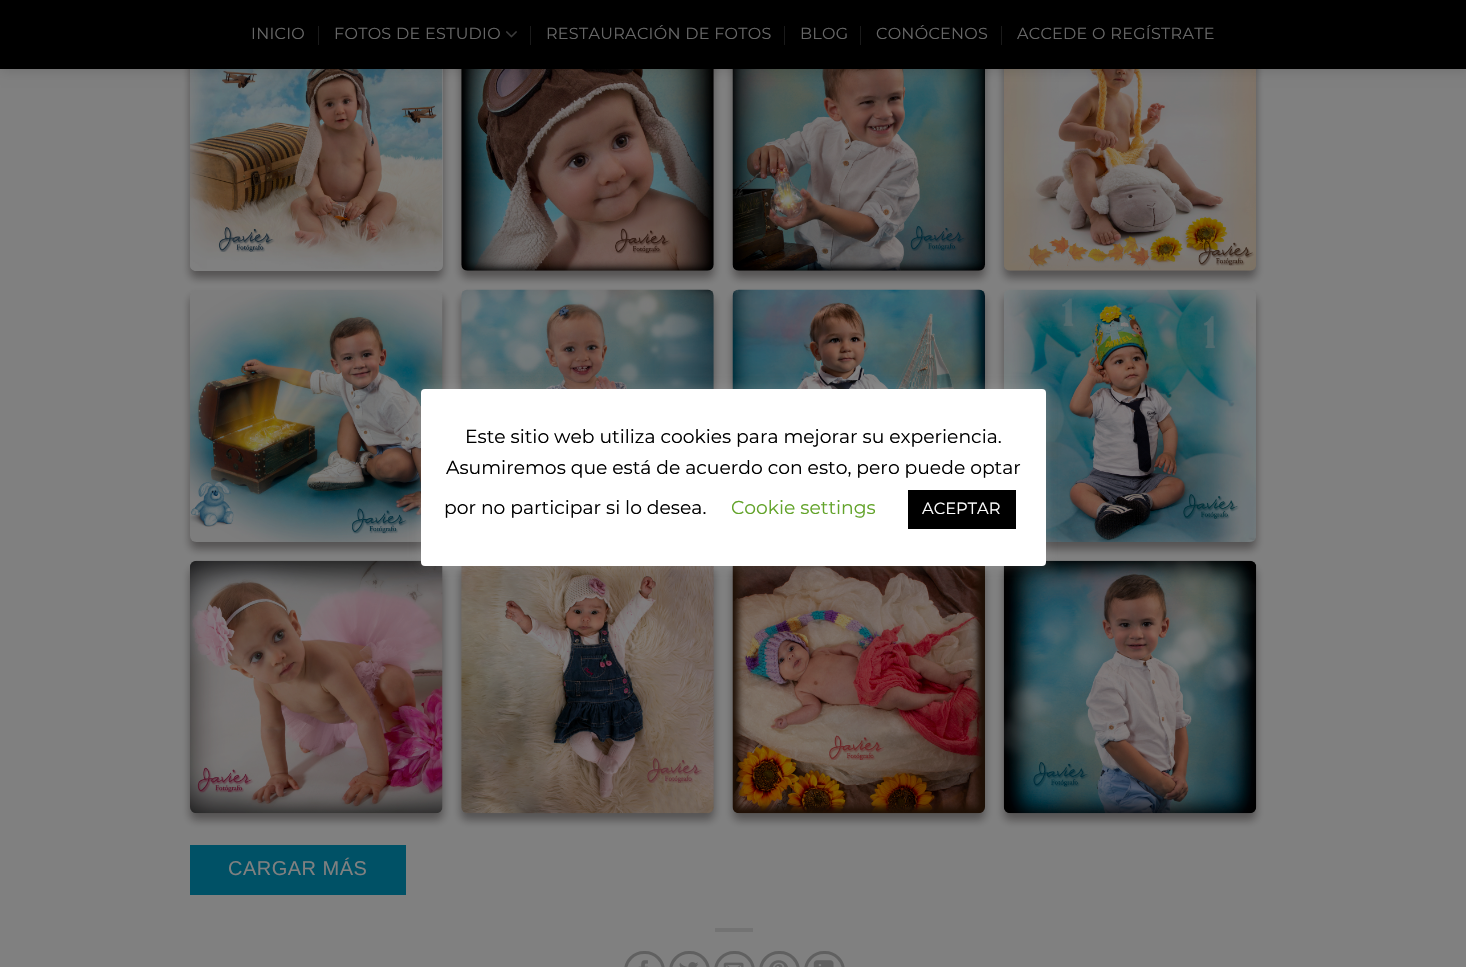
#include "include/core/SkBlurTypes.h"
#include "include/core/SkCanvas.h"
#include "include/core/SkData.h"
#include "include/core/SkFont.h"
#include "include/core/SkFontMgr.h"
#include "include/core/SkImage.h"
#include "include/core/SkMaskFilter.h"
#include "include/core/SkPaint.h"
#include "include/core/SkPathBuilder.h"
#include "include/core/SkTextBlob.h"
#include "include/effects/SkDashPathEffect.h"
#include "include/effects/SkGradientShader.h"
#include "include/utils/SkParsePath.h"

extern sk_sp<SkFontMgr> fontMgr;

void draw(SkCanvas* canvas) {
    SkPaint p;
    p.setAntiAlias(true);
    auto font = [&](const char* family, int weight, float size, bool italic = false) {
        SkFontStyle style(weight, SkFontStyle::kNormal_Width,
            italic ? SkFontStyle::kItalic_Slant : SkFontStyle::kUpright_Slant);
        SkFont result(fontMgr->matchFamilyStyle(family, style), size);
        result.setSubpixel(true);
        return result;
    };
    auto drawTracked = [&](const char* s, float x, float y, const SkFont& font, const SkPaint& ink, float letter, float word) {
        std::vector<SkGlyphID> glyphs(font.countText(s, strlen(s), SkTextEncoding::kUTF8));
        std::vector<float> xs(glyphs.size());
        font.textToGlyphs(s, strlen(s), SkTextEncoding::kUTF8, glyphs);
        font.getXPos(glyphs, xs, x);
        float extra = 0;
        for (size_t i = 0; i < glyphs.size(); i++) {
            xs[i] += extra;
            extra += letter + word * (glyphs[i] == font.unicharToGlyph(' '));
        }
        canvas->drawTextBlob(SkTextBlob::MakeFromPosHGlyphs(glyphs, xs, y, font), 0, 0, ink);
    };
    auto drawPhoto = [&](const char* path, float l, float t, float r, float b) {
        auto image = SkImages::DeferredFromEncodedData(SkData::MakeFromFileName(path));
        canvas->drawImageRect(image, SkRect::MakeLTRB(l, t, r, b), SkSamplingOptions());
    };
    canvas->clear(0xFF808080);
    canvas->save();
    canvas->clipPath(SkPathBuilder(SkPathFillType::kEvenOdd).moveTo(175, 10).lineTo(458, 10).lineTo(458, 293).lineTo(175, 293).close().moveTo(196, 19).lineTo(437, 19).cubicTo(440.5f, 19, 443, 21.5f, 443, 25).lineTo(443, 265).cubicTo(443, 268.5f, 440.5f, 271, 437, 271).lineTo(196, 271).cubicTo(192.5f, 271, 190, 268.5f, 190, 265).lineTo(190, 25).cubicTo(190, 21.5f, 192.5f, 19, 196, 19).close().detach(), true);
    p.setColor(0x66110D0D);
    p.setMaskFilter(SkMaskFilter::MakeBlur(kNormal_SkBlurStyle, 4.5f));
    canvas->drawRoundRect(SkRect::MakeLTRB(190, 25, 443, 278), 6, 6, p);
    p.setMaskFilter(nullptr);
    canvas->restore();
    drawPhoto("media/2.png", 190, 69, 443, 269);
    p.setMaskFilter(SkMaskFilter::MakeBlur(kNormal_SkBlurStyle, 4.5f));
    canvas->drawRoundRect(SkRect::MakeLTRB(461, 25, 714, 278), 6, 6, p);
    p.setMaskFilter(nullptr);
    drawPhoto("media/3.png", 461, 69, 714, 271);
    p.setMaskFilter(SkMaskFilter::MakeBlur(kNormal_SkBlurStyle, 4.5f));
    canvas->drawRoundRect(SkRect::MakeLTRB(733, 25, 985, 278), 6, 6, p);
    p.setMaskFilter(nullptr);
    drawPhoto("media/4.png", 732, 69, 985, 271);
    p.setMaskFilter(SkMaskFilter::MakeBlur(kNormal_SkBlurStyle, 4.5f));
    canvas->drawRoundRect(SkRect::MakeLTRB(1004, 25, 1256, 278), 6, 6, p);
    p.setMaskFilter(nullptr);
    drawPhoto("media/5.png", 1004, 69, 1256, 271);
    p.setColor(0x26000000);
    p.setMaskFilter(SkMaskFilter::MakeBlur(kNormal_SkBlurStyle, 6));
    canvas->drawRect(SkRect::MakeLTRB(1, 1, 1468, 70), p);
    p.setMaskFilter(nullptr);
    p.setColor(0xFF000000);
    canvas->drawRect(SkRect::MakeLTRB(0, 0, 1466, 69), p);
    auto font1 = font("Montserrat", 100, 16);
    p.setColor(0xFF666666);
    drawTracked("INICIO", 251, 39, font1, p, 0.3f, 0);
    p.setColor(0xFF1A1A1A);
    canvas->drawRect(SkRect::MakeLTRB(318, 26, 319, 45), p);
    p.setColor(0xFF666666);
    drawTracked("FOTOS DE ESTUDIO", 334, 39, font1, p, 0.3f, 0);
    drawPhoto("media/1.png", 506, 31, 517, 38);
    p.setColor(0xFF1A1A1A);
    canvas->drawRect(SkRect::MakeLTRB(530, 26, 531, 45), p);
    p.setColor(0xFF666666);
    drawTracked("RESTAURACIÓN DE FOTOS", 546, 39, font1, p, 0.3f, 0);
    p.setColor(0xFF1A1A1A);
    canvas->drawRect(SkRect::MakeLTRB(784, 26, 785, 45), p);
    p.setColor(0xFF666666);
    drawTracked("BLOG", 800, 39, font1, p, 0.3f, 0);
    p.setColor(0xFF1A1A1A);
    canvas->drawRect(SkRect::MakeLTRB(860, 26, 861, 45), p);
    p.setColor(0xFF666666);
    drawTracked("CONÓCENOS", 876, 39, font1, p, 0.3f, 0);
    p.setColor(0xFF1A1A1A);
    canvas->drawRect(SkRect::MakeLTRB(1001, 26, 1002, 45), p);
    p.setColor(0xFF666666);
    drawTracked("ACCEDE O REGÍSTRATE", 1017, 39, font1, p, 0.3f, 0);
    p.setColor(0x66110D0D);
    p.setMaskFilter(SkMaskFilter::MakeBlur(kNormal_SkBlurStyle, 4.5f));
    canvas->drawRoundRect(SkRect::MakeLTRB(190, 296, 443, 549), 6, 6, p);
    p.setMaskFilter(nullptr);
    drawPhoto("media/6.png", 190, 289, 443, 542);
    p.setMaskFilter(SkMaskFilter::MakeBlur(kNormal_SkBlurStyle, 4.5f));
    canvas->drawRoundRect(SkRect::MakeLTRB(461, 296, 714, 549), 6, 6, p);
    p.setMaskFilter(nullptr);
    drawPhoto("media/7.png", 461, 289, 714, 389);
    p.setMaskFilter(SkMaskFilter::MakeBlur(kNormal_SkBlurStyle, 4.5f));
    canvas->drawRoundRect(SkRect::MakeLTRB(733, 296, 985, 549), 6, 6, p);
    p.setMaskFilter(nullptr);
    drawPhoto("media/8.png", 732, 289, 985, 389);
    p.setMaskFilter(SkMaskFilter::MakeBlur(kNormal_SkBlurStyle, 4.5f));
    canvas->drawRoundRect(SkRect::MakeLTRB(1004, 296, 1256, 549), 6, 6, p);
    p.setMaskFilter(nullptr);
    drawPhoto("media/9.png", 1004, 289, 1256, 542);
    p.setMaskFilter(SkMaskFilter::MakeBlur(kNormal_SkBlurStyle, 4.5f));
    canvas->drawRoundRect(SkRect::MakeLTRB(190, 568, 443, 820), 6, 6, p);
    p.setMaskFilter(nullptr);
    drawPhoto("media/10.png", 190, 560, 443, 814);
    p.setMaskFilter(SkMaskFilter::MakeBlur(kNormal_SkBlurStyle, 4.5f));
    canvas->drawRoundRect(SkRect::MakeLTRB(461, 568, 714, 820), 6, 6, p);
    p.setMaskFilter(nullptr);
    drawPhoto("media/11.png", 461, 566, 714, 814);
    p.setMaskFilter(SkMaskFilter::MakeBlur(kNormal_SkBlurStyle, 4.5f));
    canvas->drawRoundRect(SkRect::MakeLTRB(733, 568, 985, 820), 6, 6, p);
    p.setMaskFilter(nullptr);
    drawPhoto("media/12.png", 732, 566, 985, 814);
    p.setMaskFilter(SkMaskFilter::MakeBlur(kNormal_SkBlurStyle, 4.5f));
    canvas->drawRoundRect(SkRect::MakeLTRB(1004, 568, 1256, 820), 6, 6, p);
    p.setMaskFilter(nullptr);
    drawPhoto("media/13.png", 1003, 560, 1257, 814);
    p.setColor(0xFF005166);
    canvas->drawRect(SkRect::MakeLTRB(190, 845, 406, 895), p);
    auto font2 = font("Liberation Sans", 400, 20);
    p.setColor(0xFF808080);
    drawTracked("CARGAR MÁS", 228, 875, font2, p, 0.5f, 0);
    p.setColor(0xFF737373);
    canvas->drawRect(SkRect::MakeLTRB(715, 928, 753, 932), p);
    p.setStyle(SkPaint::kStroke_Style);
    p.setStrokeWidth(3);
    p.setColor(0xFF606060);
    canvas->drawRoundRect(SkRect::MakeLTRB(625.5f, 952.5f, 663.5f, 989.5f), 19, 19, p);
    drawPhoto("media/14.png", 638, 960, 648, 967);
    canvas->drawRoundRect(SkRect::MakeLTRB(670.5f, 952.5f, 708.5f, 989.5f), 19, 19, p);
    drawPhoto("media/15.png", 679, 962, 699, 967);
    canvas->drawRoundRect(SkRect::MakeLTRB(715.5f, 952.5f, 753.5f, 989.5f), 19, 19, p);
    drawPhoto("media/16.png", 723, 962, 744, 967);
    canvas->drawRoundRect(SkRect::MakeLTRB(760.5f, 952.5f, 798.5f, 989.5f), 19, 19, p);
    drawPhoto("media/17.png", 769, 960, 788, 967);
    canvas->drawRoundRect(SkRect::MakeLTRB(805.5f, 952.5f, 843.5f, 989.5f), 19, 19, p);
    drawPhoto("media/18.png", 813, 960, 834, 967);
    p.setStyle(SkPaint::kFill_Style);
    p.setColor(0x4DACABAB);
    p.setMaskFilter(SkMaskFilter::MakeBlur(kNormal_SkBlurStyle, 6));
    canvas->drawRoundRect(SkRect::MakeLTRB(421, 388, 1046, 565), 4, 4, p);
    p.setMaskFilter(nullptr);
    p.setColor(0xFFFFFFFF);
    canvas->drawRoundRect(SkRect::MakeLTRB(421, 389, 1046, 566), 4, 4, p);
    auto font3 = font("Montserrat", 100, 18.75f);
    p.setColor(0xFF000000);
    {
        const struct { const char* s; float x, y; } items[] = {
            {"Este sitio web utiliza cookies para mejorar su experiencia.", 465, 443},
            {"Asumiremos que está de acuerdo con esto, pero puede optar", 446, 474},
            {"por no participar si lo desea.", 444, 514},
        };
        for (auto [s, x, y] : items) {
            canvas->drawString(s, x, y, font3, p);
        }
    }
    p.setColor(0xFF62A329);
    canvas->drawString("Cookie settings", 731, 514, font3, p);
    p.setColor(0xFF000000);
    canvas->drawRect(SkRect::MakeLTRB(908, 490, 1016, 529), p);
    auto font4 = font("Montserrat", 100, 16.25f);
    p.setColor(0xFFFFFFFF);
    canvas->drawString("ACEPTAR", 922, 514, font4, p);
}
